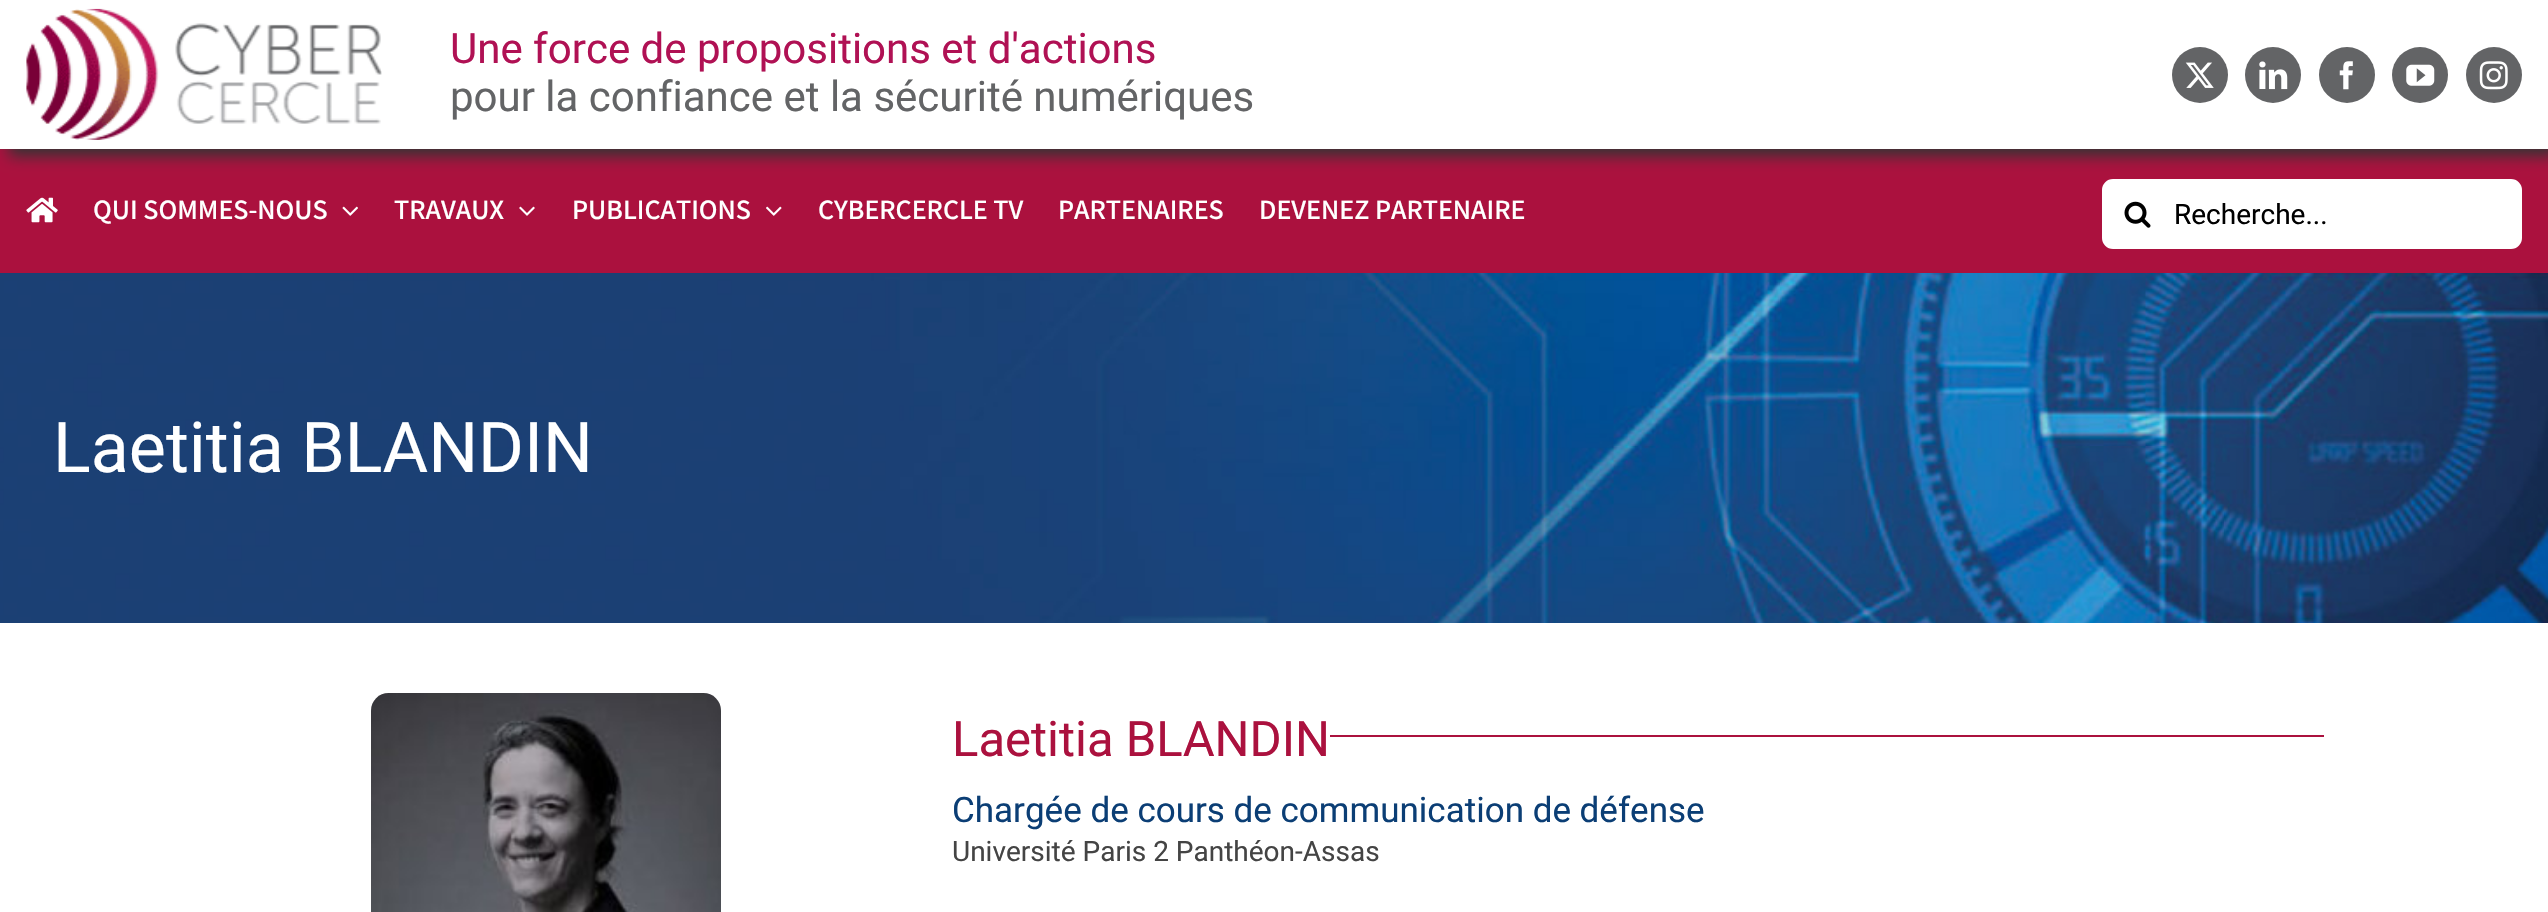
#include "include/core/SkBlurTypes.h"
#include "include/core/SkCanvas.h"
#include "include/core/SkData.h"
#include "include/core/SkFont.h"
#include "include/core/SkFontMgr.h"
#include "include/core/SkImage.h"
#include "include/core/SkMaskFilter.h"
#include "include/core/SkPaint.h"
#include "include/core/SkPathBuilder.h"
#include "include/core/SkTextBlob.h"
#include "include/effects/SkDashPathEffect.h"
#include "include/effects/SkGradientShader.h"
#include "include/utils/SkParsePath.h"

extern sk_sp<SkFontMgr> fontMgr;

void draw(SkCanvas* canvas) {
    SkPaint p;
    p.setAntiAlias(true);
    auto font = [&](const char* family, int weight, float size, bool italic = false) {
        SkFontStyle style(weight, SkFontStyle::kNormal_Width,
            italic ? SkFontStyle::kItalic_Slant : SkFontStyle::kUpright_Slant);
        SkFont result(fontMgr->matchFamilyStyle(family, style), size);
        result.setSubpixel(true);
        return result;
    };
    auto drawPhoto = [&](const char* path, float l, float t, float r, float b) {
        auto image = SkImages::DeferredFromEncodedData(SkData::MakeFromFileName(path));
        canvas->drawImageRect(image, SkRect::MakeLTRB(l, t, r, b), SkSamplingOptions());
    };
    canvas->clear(0xFFFFFFFF);
    p.setColor(0xFFAB113E);
    canvas->drawRect(SkRect::MakeLTRB(0, 149, 2548, 273), p);
    canvas->save();
    canvas->clipPath(SkPathBuilder(SkPathFillType::kEvenOdd).moveTo(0, 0).lineTo(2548, 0).lineTo(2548, 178).lineTo(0, 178).close().moveTo(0, 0).lineTo(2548, 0).lineTo(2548, 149).lineTo(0, 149).close().detach(), true);
    p.setColor(0xFF333333);
    p.setMaskFilter(SkMaskFilter::MakeBlur(kNormal_SkBlurStyle, 7));
    canvas->drawRect(SkRect::MakeLTRB(9, 7, 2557, 156), p);
    p.setMaskFilter(nullptr);
    canvas->restore();
    drawPhoto("media/1.png", 26, 8, 382, 140);
    auto font1 = font("Roboto", 400, 42);
    p.setColor(0xFFB01154);
    canvas->drawString("Une force de propositions et d'actions", 450, 63, font1, p);
    p.setColor(0xFF636466);
    canvas->drawString("pour la confiance et la sécurité numériques", 450, 111, font1, p);
    canvas->drawCircle(2200, 75, 28, p);
    drawPhoto("media/2.png", 2185, 62, 2214, 88);
    canvas->drawCircle(2273, 75, 28, p);
    drawPhoto("media/3.png", 2259, 61, 2288, 90);
    canvas->drawCircle(2347, 75, 28, p);
    drawPhoto("media/4.png", 2339, 61, 2353, 90);
    canvas->drawCircle(2420, 75, 28, p);
    drawPhoto("media/5.png", 2406, 64, 2435, 86);
    canvas->drawCircle(2494, 75, 28, p);
    drawPhoto("media/6.png", 2479, 61, 2508, 90);
    drawPhoto("media/7.png", 26, 197, 58, 223);
    auto font2 = font("Assistant", 600, 28);
    p.setColor(0xFFFFFFFF);
    canvas->drawString("QUI SOMMES-NOUS", 93, 219, font2, p);
    drawPhoto("media/8.png", 342, 206, 358, 216);
    canvas->drawString("TRAVAUX", 394, 219, font2, p);
    drawPhoto("media/9.png", 519, 206, 535, 216);
    canvas->drawString("PUBLICATIONS", 572, 219, font2, p);
    drawPhoto("media/10.png", 766, 206, 782, 216);
    {
        const struct { const char* s; float x, y; } items[] = {
            {"CYBERCERCLE TV", 818, 219},
            {"PARTENAIRES", 1058, 219},
            {"DEVENEZ PARTENAIRE", 1259, 219},
        };
        for (auto [s, x, y] : items) {
            canvas->drawString(s, x, y, font2, p);
        }
    }
    canvas->drawRoundRect(SkRect::MakeLTRB(2103, 180, 2521, 248), 10, 10, p);
    p.setStyle(SkPaint::kStroke_Style);
    p.setStrokeWidth(2);
    canvas->drawRoundRect(SkRect::MakeLTRB(2103, 180, 2521, 248), 10, 10, p);
    drawPhoto("media/11.png", 2124, 201, 2151, 228);
    auto font3 = font("Roboto", 400, 28);
    p.setStyle(SkPaint::kFill_Style);
    p.setColor(0xFF000000);
    canvas->drawString("Recherche...", 2174, 224, font3, p);
    drawPhoto("media/12.png", 0, 273, 2548, 623);
    auto font4 = font("Roboto", 400, 70);
    p.setColor(0xFFFFFFFF);
    canvas->drawString("Laetitia BLANDIN", 53, 472, font4, p);
    drawPhoto("media/13.png", 371, 693, 721, 912);
    auto font5 = font("Roboto", 400, 49);
    p.setColor(0xFFAB113E);
    canvas->drawString("Laetitia BLANDIN", 952, 756, font5, p);
    canvas->drawRect(SkRect::MakeLTRB(1330, 735, 2324, 737), p);
    auto font6 = font("Roboto", 400, 35);
    p.setColor(0xFF0B3E75);
    canvas->drawString("Chargée de cours de communication de défense", 952, 822, font6, p);
    p.setColor(0xFF444444);
    canvas->drawString("Université Paris 2 Panthéon-Assas", 952, 861, font3, p);
}
